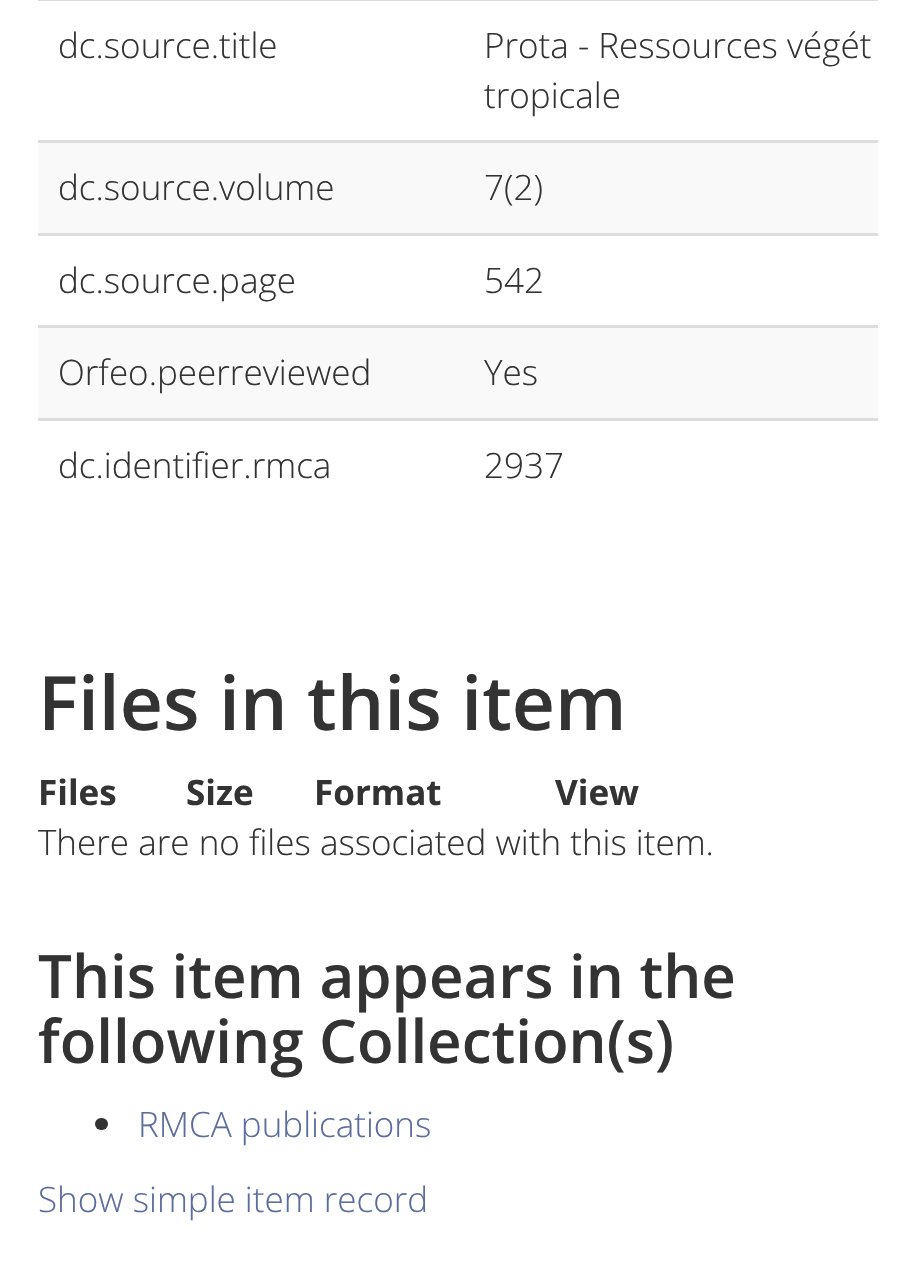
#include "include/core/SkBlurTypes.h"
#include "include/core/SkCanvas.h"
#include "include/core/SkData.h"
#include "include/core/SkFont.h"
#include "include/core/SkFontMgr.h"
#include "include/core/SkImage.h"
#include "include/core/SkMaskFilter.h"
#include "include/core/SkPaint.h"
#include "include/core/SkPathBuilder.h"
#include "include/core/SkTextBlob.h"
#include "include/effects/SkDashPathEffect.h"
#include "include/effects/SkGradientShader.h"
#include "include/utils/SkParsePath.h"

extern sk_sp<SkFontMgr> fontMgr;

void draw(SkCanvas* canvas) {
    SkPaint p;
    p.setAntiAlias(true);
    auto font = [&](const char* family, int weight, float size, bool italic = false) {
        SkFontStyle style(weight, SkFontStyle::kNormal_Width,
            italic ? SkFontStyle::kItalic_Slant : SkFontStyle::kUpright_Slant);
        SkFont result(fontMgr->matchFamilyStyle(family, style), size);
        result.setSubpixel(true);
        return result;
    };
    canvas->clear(0xFFFFFFFF);
    auto font1 = font("Open Sans", 300, 35);
    p.setColor(0xFF333333);
    canvas->drawString("dc.source.title", 58, 58, font1, p);
    p.setColor(0xFFDDDDDD);
    canvas->drawRect(SkRect::MakeLTRB(38, 0, 878, 1), p);
    p.setColor(0xFF333333);
    canvas->drawString("Prota - Ressources végét", 484, 58, font1, p);
    canvas->drawString("tropicale", 484, 108, font1, p);
    p.setColor(0xFFF9F9F9);
    canvas->drawRect(SkRect::MakeLTRB(38, 143, 878, 233), p);
    p.setColor(0xFF333333);
    canvas->drawString("dc.source.volume", 58, 200, font1, p);
    p.setColor(0xFFDDDDDD);
    canvas->drawRect(SkRect::MakeLTRB(38, 140, 878, 143), p);
    p.setColor(0xFF333333);
    canvas->drawString("7(2)", 484, 200, font1, p);
    canvas->drawString("dc.source.page", 58, 293, font1, p);
    p.setColor(0xFFDDDDDD);
    canvas->drawRect(SkRect::MakeLTRB(38, 233, 878, 236), p);
    p.setColor(0xFF333333);
    canvas->drawString("542", 484, 293, font1, p);
    p.setColor(0xFFF9F9F9);
    canvas->drawRect(SkRect::MakeLTRB(38, 328, 878, 418), p);
    p.setColor(0xFF333333);
    canvas->drawString("Orfeo.peerreviewed", 58, 385, font1, p);
    p.setColor(0xFFDDDDDD);
    canvas->drawRect(SkRect::MakeLTRB(38, 325, 878, 328), p);
    p.setColor(0xFF333333);
    canvas->drawString("Yes", 484, 385, font1, p);
    canvas->drawString("dc.identifier.rmca", 58, 478, font1, p);
    p.setColor(0xFFDDDDDD);
    canvas->drawRect(SkRect::MakeLTRB(38, 418, 878, 421), p);
    p.setColor(0xFF333333);
    canvas->drawString("2937", 484, 478, font1, p);
    auto font2 = font("Open Sans", 600, 75);
    canvas->drawString("Files in this item", 38, 730, font2, p);
    auto font3 = font("Open Sans", 700, 35);
    {
        const struct { const char* s; float x, y; } items[] = {
            {"Files", 38, 805},
            {"Size", 186, 805},
            {"Format", 314, 805},
            {"View", 555, 805},
        };
        for (auto [s, x, y] : items) {
            canvas->drawString(s, x, y, font3, p);
        }
    }
    canvas->drawString("There are no files associated with this item.", 38, 855, font1, p);
    auto font4 = font("Open Sans", 600, 60);
    canvas->drawString("This item appears in the", 38, 998, font4, p);
    canvas->drawString("following Collection(s)", 38, 1063, font4, p);
    canvas->drawRoundRect(SkRect::MakeLTRB(95, 1118, 108, 1130), 6, 6, p);
    p.setColor(0xFF5C6C9D);
    canvas->drawString("RMCA publications", 138, 1137, font1, p);
    canvas->drawString("Show simple item record", 38, 1212, font1, p);
}
